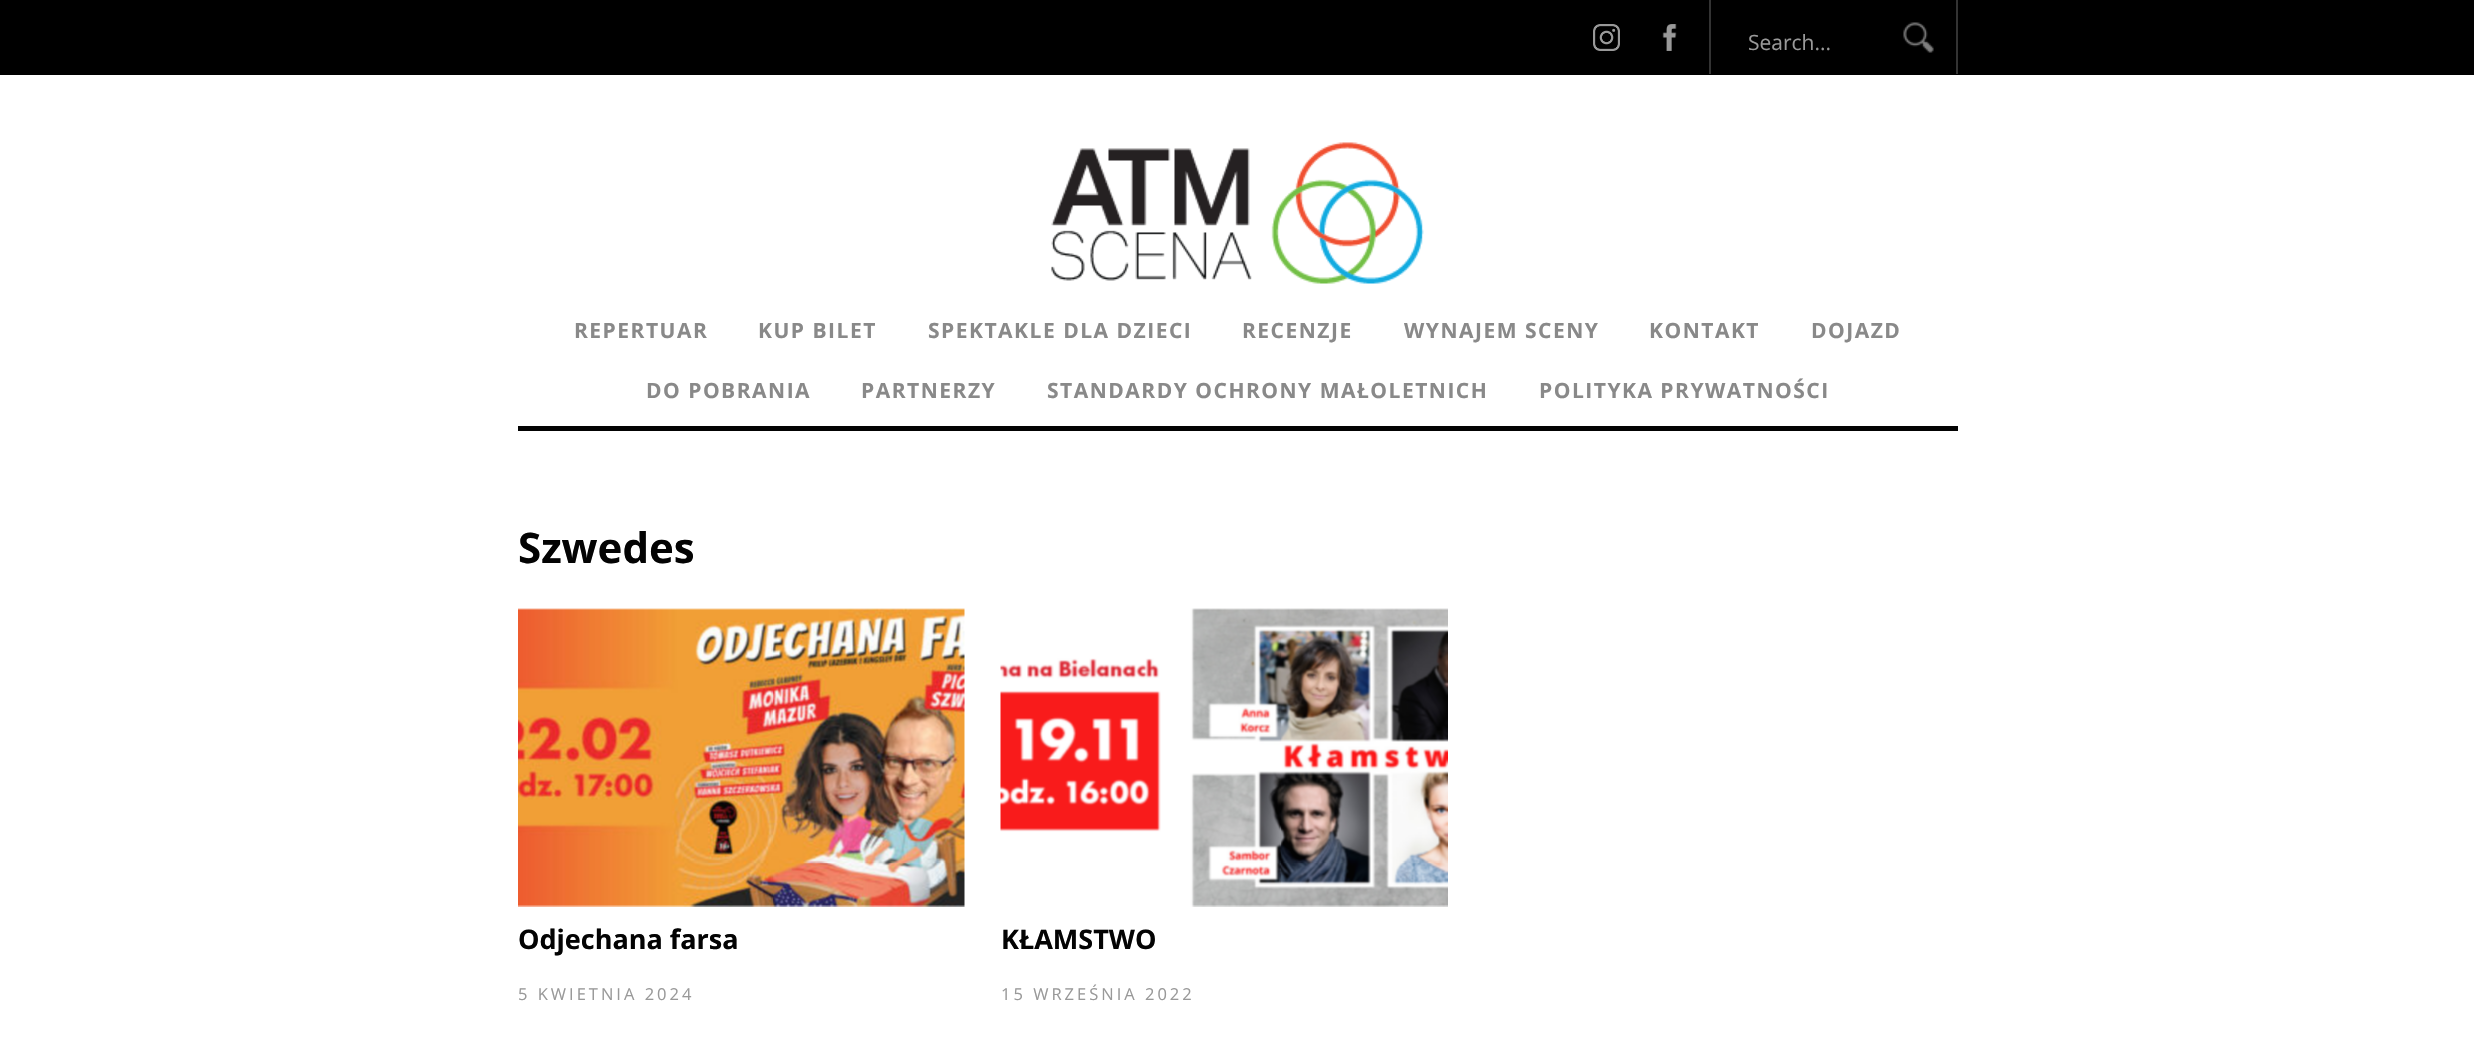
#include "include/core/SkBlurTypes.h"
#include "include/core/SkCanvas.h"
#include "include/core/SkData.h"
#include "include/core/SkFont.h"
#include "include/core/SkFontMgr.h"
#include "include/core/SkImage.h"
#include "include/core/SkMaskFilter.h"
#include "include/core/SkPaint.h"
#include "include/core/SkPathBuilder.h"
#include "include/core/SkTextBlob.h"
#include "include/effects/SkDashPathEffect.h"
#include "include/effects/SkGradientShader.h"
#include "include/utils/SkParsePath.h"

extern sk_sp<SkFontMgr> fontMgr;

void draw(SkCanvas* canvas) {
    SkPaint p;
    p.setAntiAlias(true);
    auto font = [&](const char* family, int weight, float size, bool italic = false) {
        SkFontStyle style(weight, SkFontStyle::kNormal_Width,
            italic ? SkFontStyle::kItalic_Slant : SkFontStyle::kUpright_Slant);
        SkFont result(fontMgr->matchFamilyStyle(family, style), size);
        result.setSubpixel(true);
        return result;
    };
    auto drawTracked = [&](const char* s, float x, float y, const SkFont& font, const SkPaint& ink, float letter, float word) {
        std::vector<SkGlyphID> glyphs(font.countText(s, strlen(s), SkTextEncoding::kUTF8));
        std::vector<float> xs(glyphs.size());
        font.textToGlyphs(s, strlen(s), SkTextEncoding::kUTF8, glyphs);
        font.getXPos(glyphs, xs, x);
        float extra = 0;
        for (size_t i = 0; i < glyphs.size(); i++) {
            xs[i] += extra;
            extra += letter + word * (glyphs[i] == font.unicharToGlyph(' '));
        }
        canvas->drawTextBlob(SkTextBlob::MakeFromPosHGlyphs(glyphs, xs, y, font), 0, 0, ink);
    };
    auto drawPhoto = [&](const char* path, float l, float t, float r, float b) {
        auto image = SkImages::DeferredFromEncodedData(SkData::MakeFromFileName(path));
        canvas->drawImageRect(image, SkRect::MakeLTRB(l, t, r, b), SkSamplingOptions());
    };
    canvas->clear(0xFFFFFFFF);
    p.setColor(0xFF000000);
    canvas->drawRect(SkRect::MakeLTRB(0, 0, 2474, 75), p);
    drawPhoto("media/1.png", 1593, 24, 1620, 51);
    drawPhoto("media/2.png", 1662, 24, 1677, 51);
    p.setColor(0xFF333333);
    canvas->drawRect(SkRect::MakeLTRB(1956, 0, 1958, 74), p);
    canvas->drawRect(SkRect::MakeLTRB(1709, 0, 1711, 74), p);
    auto font1 = font("Open Sans", 400, 21);
    p.setColor(0xFF999999);
    canvas->drawString("Search...", 1748, 50, font1, p);
    drawPhoto("media/3.png", 1903, 22, 1934, 53);
    drawPhoto("media/4.png", 1051, 142, 1424, 284);
    p.setColor(0xFF030303);
    canvas->drawRect(SkRect::MakeLTRB(518, 426, 1958, 431), p);
    auto font2 = font("Open Sans", 700, 21);
    p.setColor(0xFF898989);
    {
        const struct { const char* s; float x, y; } items[] = {
            {"REPERTUAR", 574, 338},
            {"KUP BILET", 758, 338},
            {"SPEKTAKLE DLA DZIECI", 928, 338},
            {"RECENZJE", 1242, 338},
            {"WYNAJEM SCENY", 1404, 338},
            {"KONTAKT", 1649, 338},
            {"DOJAZD", 1811, 338},
            {"DO POBRANIA", 646, 398},
            {"PARTNERZY", 861, 398},
            {"STANDARDY OCHRONY MAŁOLETNICH", 1047, 398},
            {"POLITYKA PRYWATNOŚCI", 1539, 398},
        };
        for (auto [s, x, y] : items) {
            drawTracked(s, x, y, font2, p, 1.5f, 0);
        }
    }
    auto font3 = font("Open Sans", 700, 42);
    p.setColor(0xFF030303);
    canvas->drawString("Szwedes", 518, 563, font3, p);
    drawPhoto("media/5.png", 518, 608, 965, 907);
    auto font4 = font("Open Sans", 700, 27);
    canvas->drawString("Odjechana farsa", 518, 949, font4, p);
    auto font5 = font("Open Sans", 400, 16.5f);
    p.setColor(0xFF999999);
    drawTracked("5 KWIETNIA 2024", 518, 1000, font5, p, 3, 0);
    drawPhoto("media/6.png", 1000, 608, 1448, 907);
    p.setColor(0xFF030303);
    canvas->drawString("KŁAMSTWO", 1001, 949, font4, p);
    p.setColor(0xFF999999);
    drawTracked("15 WRZEŚNIA 2022", 1001, 1000, font5, p, 3, 0);
}
